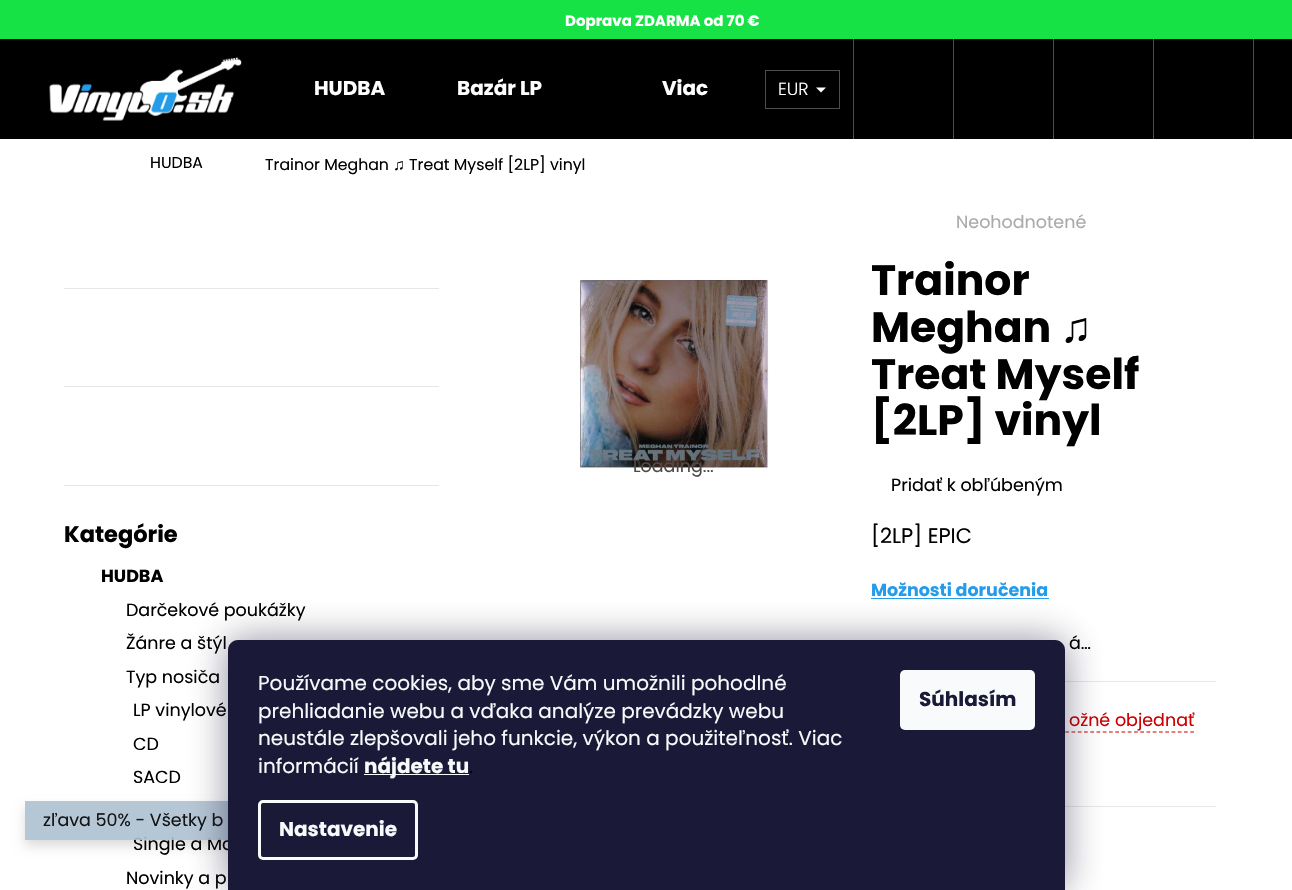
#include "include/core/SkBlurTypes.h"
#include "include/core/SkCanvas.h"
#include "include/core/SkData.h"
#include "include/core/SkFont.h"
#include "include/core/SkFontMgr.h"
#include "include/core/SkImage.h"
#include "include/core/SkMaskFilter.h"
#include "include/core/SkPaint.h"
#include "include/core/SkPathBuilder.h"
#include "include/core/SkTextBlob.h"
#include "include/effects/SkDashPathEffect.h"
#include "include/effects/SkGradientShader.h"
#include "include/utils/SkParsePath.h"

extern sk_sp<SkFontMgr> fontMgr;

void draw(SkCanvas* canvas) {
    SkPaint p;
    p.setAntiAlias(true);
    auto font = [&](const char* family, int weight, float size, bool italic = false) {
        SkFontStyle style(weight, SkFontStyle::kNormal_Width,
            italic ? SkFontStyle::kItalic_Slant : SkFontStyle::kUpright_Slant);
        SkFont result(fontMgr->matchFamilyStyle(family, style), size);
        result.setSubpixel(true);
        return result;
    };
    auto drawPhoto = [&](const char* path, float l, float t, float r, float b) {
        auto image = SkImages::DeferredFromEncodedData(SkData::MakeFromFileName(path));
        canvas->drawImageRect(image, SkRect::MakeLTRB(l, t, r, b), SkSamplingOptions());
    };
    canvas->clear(0xFFFFFFFF);
    p.setColor(0xFF16E145);
    canvas->drawRect(SkRect::MakeLTRB(0, 0, 1292, 39), p);
    auto font1 = font("Poppins", 700, 15);
    p.setColor(0xFFFFFFFF);
    canvas->drawString("Doprava ZDARMA od 70 €", 565, 26, font1, p);
    p.setColor(0xFF000000);
    canvas->drawRect(SkRect::MakeLTRB(0, 39, 1292, 139), p);
    drawPhoto("media/1.png", 49, 57, 242, 121);
    auto font2 = font("Poppins", 700, 20);
    p.setColor(0xFFFFFFFF);
    {
        const struct { const char* s; float x, y; } items[] = {
            {"HUDBA", 314, 95},
            {"Bazár LP", 457, 95},
            {"Viac", 662, 95},
        };
        for (auto [s, x, y] : items) {
            canvas->drawString(s, x, y, font2, p);
        }
    }
    p.setColor(0xFF4D4D4D);
    canvas->drawRect(SkRect::MakeLTRB(1253, 39, 1254, 139), p);
    p.setStyle(SkPaint::kStroke_Style);
    p.setStrokeWidth(1);
    canvas->drawRect(SkRect::MakeLTRB(765.5f, 70.5f, 839.5f, 108.5f), p);
    auto font3 = font("Poppins", 300, 17.5f);
    p.setStyle(SkPaint::kFill_Style);
    p.setColor(0xFFFFFFFF);
    canvas->drawString("EUR", 778, 95, font3, p);
    canvas->drawPath(SkPathBuilder().moveTo(816, 87.5f).lineTo(826, 87.5f).lineTo(821, 92.5f).close().detach(), p);
    {
        const struct { float l, t, r, b; SkColor color; } items[] = {
            {853, 39, 854, 139, 0xFF4D4D4D},
            {953, 39, 954, 139, 0xFF4D4D4D},
            {1053, 39, 1054, 139, 0xFF4D4D4D},
            {1153, 39, 1154, 139, 0xFF4D4D4D},
        };
        for (auto [l, t, r, b, color] : items) {
            p.setColor(color);
            canvas->drawRect(SkRect::MakeLTRB(l, t, r, b), p);
        }
    }
    auto font4 = font("Poppins", 400, 15.75f);
    p.setColor(0xFF000000);
    canvas->drawString("HUDBA", 150, 168, font4, p);
    canvas->drawString("Trainor Meghan", 265, 170, font4, p);
    auto font5 = font("Liberation Sans", 400, 15.75f);
    canvas->drawString("♫", 393, 170, font5, p);
    canvas->drawString("Treat Myself [2LP] vinyl", 409, 170, font4, p);
    {
        const struct { float l, t, r, b; SkColor color; } items[] = {
            {64, 288, 439, 289, 0xFFE6E6E6},
            {64, 386, 439, 387, 0xFFE6E6E6},
            {64, 485, 439, 486, 0xFFE6E6E6},
        };
        for (auto [l, t, r, b, color] : items) {
            p.setColor(color);
            canvas->drawRect(SkRect::MakeLTRB(l, t, r, b), p);
        }
    }
    auto font6 = font("Poppins", 700, 22.5f);
    p.setColor(0xFF000000);
    canvas->drawString("Kategórie", 64, 542, font6, p);
    auto font7 = font("Poppins", 700, 17.5f);
    canvas->drawString("HUDBA", 101, 582, font7, p);
    auto font8 = font("Poppins", 400, 17.5f);
    {
        const struct { const char* s; float x, y; } items[] = {
            {"Darčekové poukážky", 126, 616},
            {"Žánre a štýl", 126, 649},
            {"Typ nosiča", 126, 683},
            {"LP vinylové", 133, 716},
            {"CD", 133, 750},
            {"SACD", 133, 783},
            {"Single a Ma", 133, 850},
            {"Novinky a p", 126, 884},
        };
        for (auto [s, x, y] : items) {
            canvas->drawString(s, x, y, font8, p);
        }
    }
    drawPhoto("media/2.png", 579, 279, 769, 469);
    p.setColor(0xFF4E4A49);
    canvas->drawString("Loading...", 633, 472, font8, p);
    p.setColor(0xFFAAAAAA);
    canvas->drawString("Neohodnotené", 956, 228, font8, p);
    auto font9 = font("Poppins", 700, 42.5f);
    p.setColor(0xFF000000);
    canvas->drawString("Trainor", 871, 295, font9, p);
    canvas->drawString("Meghan", 871, 342, font9, p);
    auto font10 = font("Liberation Sans", 700, 42.5f);
    canvas->drawString("♫", 1060, 342, font10, p);
    canvas->drawString("Treat Myself", 871, 389, font9, p);
    canvas->drawString("[2LP] vinyl", 871, 435, font9, p);
    canvas->drawString("Pridať k obľúbeným", 891, 491, font8, p);
    auto font11 = font("Poppins", 400, 21);
    canvas->drawString("[2LP] EPIC", 871, 543, font11, p);
    p.setColor(0xFF239CEB);
    canvas->drawString("Možnosti doručenia", 871, 596, font7, p);
    canvas->drawRect(SkRect::MakeLTRB(871, 598, 1049, 599), p);
    p.setColor(0xFF000000);
    canvas->drawString("á…", 1069, 649, font8, p);
    p.setColor(0xFFE7E7E7);
    canvas->drawRect(SkRect::MakeLTRB(1065, 681, 1216, 682), p);
    canvas->drawRect(SkRect::MakeLTRB(1065, 806, 1216, 807), p);
    p.setColor(0xFFCB0000);
    canvas->drawString("ožné objednať", 1069, 726, font8, p);
    p.setStyle(SkPaint::kStroke_Style);
    p.setStrokeWidth(1.2f);
    p.setPathEffect(SkDashPathEffect::Make({{3.75f, 2.5f}}, 0));
    canvas->drawPath(SkPathBuilder().moveTo(884, 732).lineTo(1194, 732).detach(), p);
    p.setPathEffect(nullptr);
    canvas->save();
    canvas->clipPath(SkPathBuilder(SkPathFillType::kEvenOdd).moveTo(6, 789).lineTo(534, 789).lineTo(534, 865).lineTo(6, 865).close().moveTo(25, 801).lineTo(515, 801).lineTo(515, 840).lineTo(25, 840).close().detach(), true);
    p.setStyle(SkPaint::kFill_Style);
    p.setColor(0x24000000);
    p.setMaskFilter(SkMaskFilter::MakeBlur(kNormal_SkBlurStyle, 6));
    canvas->drawRect(SkRect::MakeLTRB(25, 808, 515, 846), p);
    p.setMaskFilter(nullptr);
    canvas->restore();
    p.setColor(0xE6ADC0D0);
    canvas->drawRect(SkRect::MakeLTRB(25, 801, 228, 840), p);
    p.setColor(0xFF121415);
    canvas->drawString("zľava 50% - Všetky b", 43, 826, font8, p);
    p.setColor(0x801B1939);
    p.setMaskFilter(SkMaskFilter::MakeBlur(kNormal_SkBlurStyle, 19));
    canvas->drawRoundRect(SkRect::MakeLTRB(228, 640, 1065, 890), 10, 10, p);
    p.setMaskFilter(nullptr);
    p.setColor(0xFF1A1937);
    canvas->drawPath(SkPathBuilder().moveTo(238, 640).lineTo(1055, 640).cubicTo(1060.5f, 640, 1065, 644.5f, 1065, 650).lineTo(1065, 890).lineTo(228, 890).lineTo(228, 650).cubicTo(228, 644.5f, 232.5f, 640, 238, 640).close().detach(), p);
    auto font12 = font("Poppins", 400, 20);
    p.setColor(0xFFF8FAFB);
    {
        const struct { const char* s; float x, y; } items[] = {
            {"Používame cookies, aby sme Vám umožnili pohodlné", 258, 690},
            {"prehliadanie webu a vďaka analýze prevádzky webu", 258, 718},
            {"neustále zlepšovali jeho funkcie, výkon a použiteľnosť. Viac", 258, 745},
            {"informácií", 258, 773},
        };
        for (auto [s, x, y] : items) {
            canvas->drawString(s, x, y, font12, p);
        }
    }
    canvas->drawRect(SkRect::MakeLTRB(364, 774, 469, 775), p);
    canvas->drawString("nájdete tu", 364, 773, font2, p);
    p.setColor(0xFF000000);
    canvas->drawString(".", 469, 773, font12, p);
    p.setStyle(SkPaint::kStroke_Style);
    p.setStrokeWidth(3);
    p.setColor(0xFFF8FAFB);
    canvas->drawRoundRect(SkRect::MakeLTRB(259.5f, 801.5f, 416.5f, 858.5f), 3.5f, 3.5f, p);
    p.setStyle(SkPaint::kFill_Style);
    canvas->drawString("Nastavenie", 279, 836, font2, p);
    canvas->drawRoundRect(SkRect::MakeLTRB(900, 670, 1035, 730), 5, 5, p);
    p.setColor(0xFF1A1937);
    canvas->drawString("Súhlasím", 919, 706, font2, p);
}
